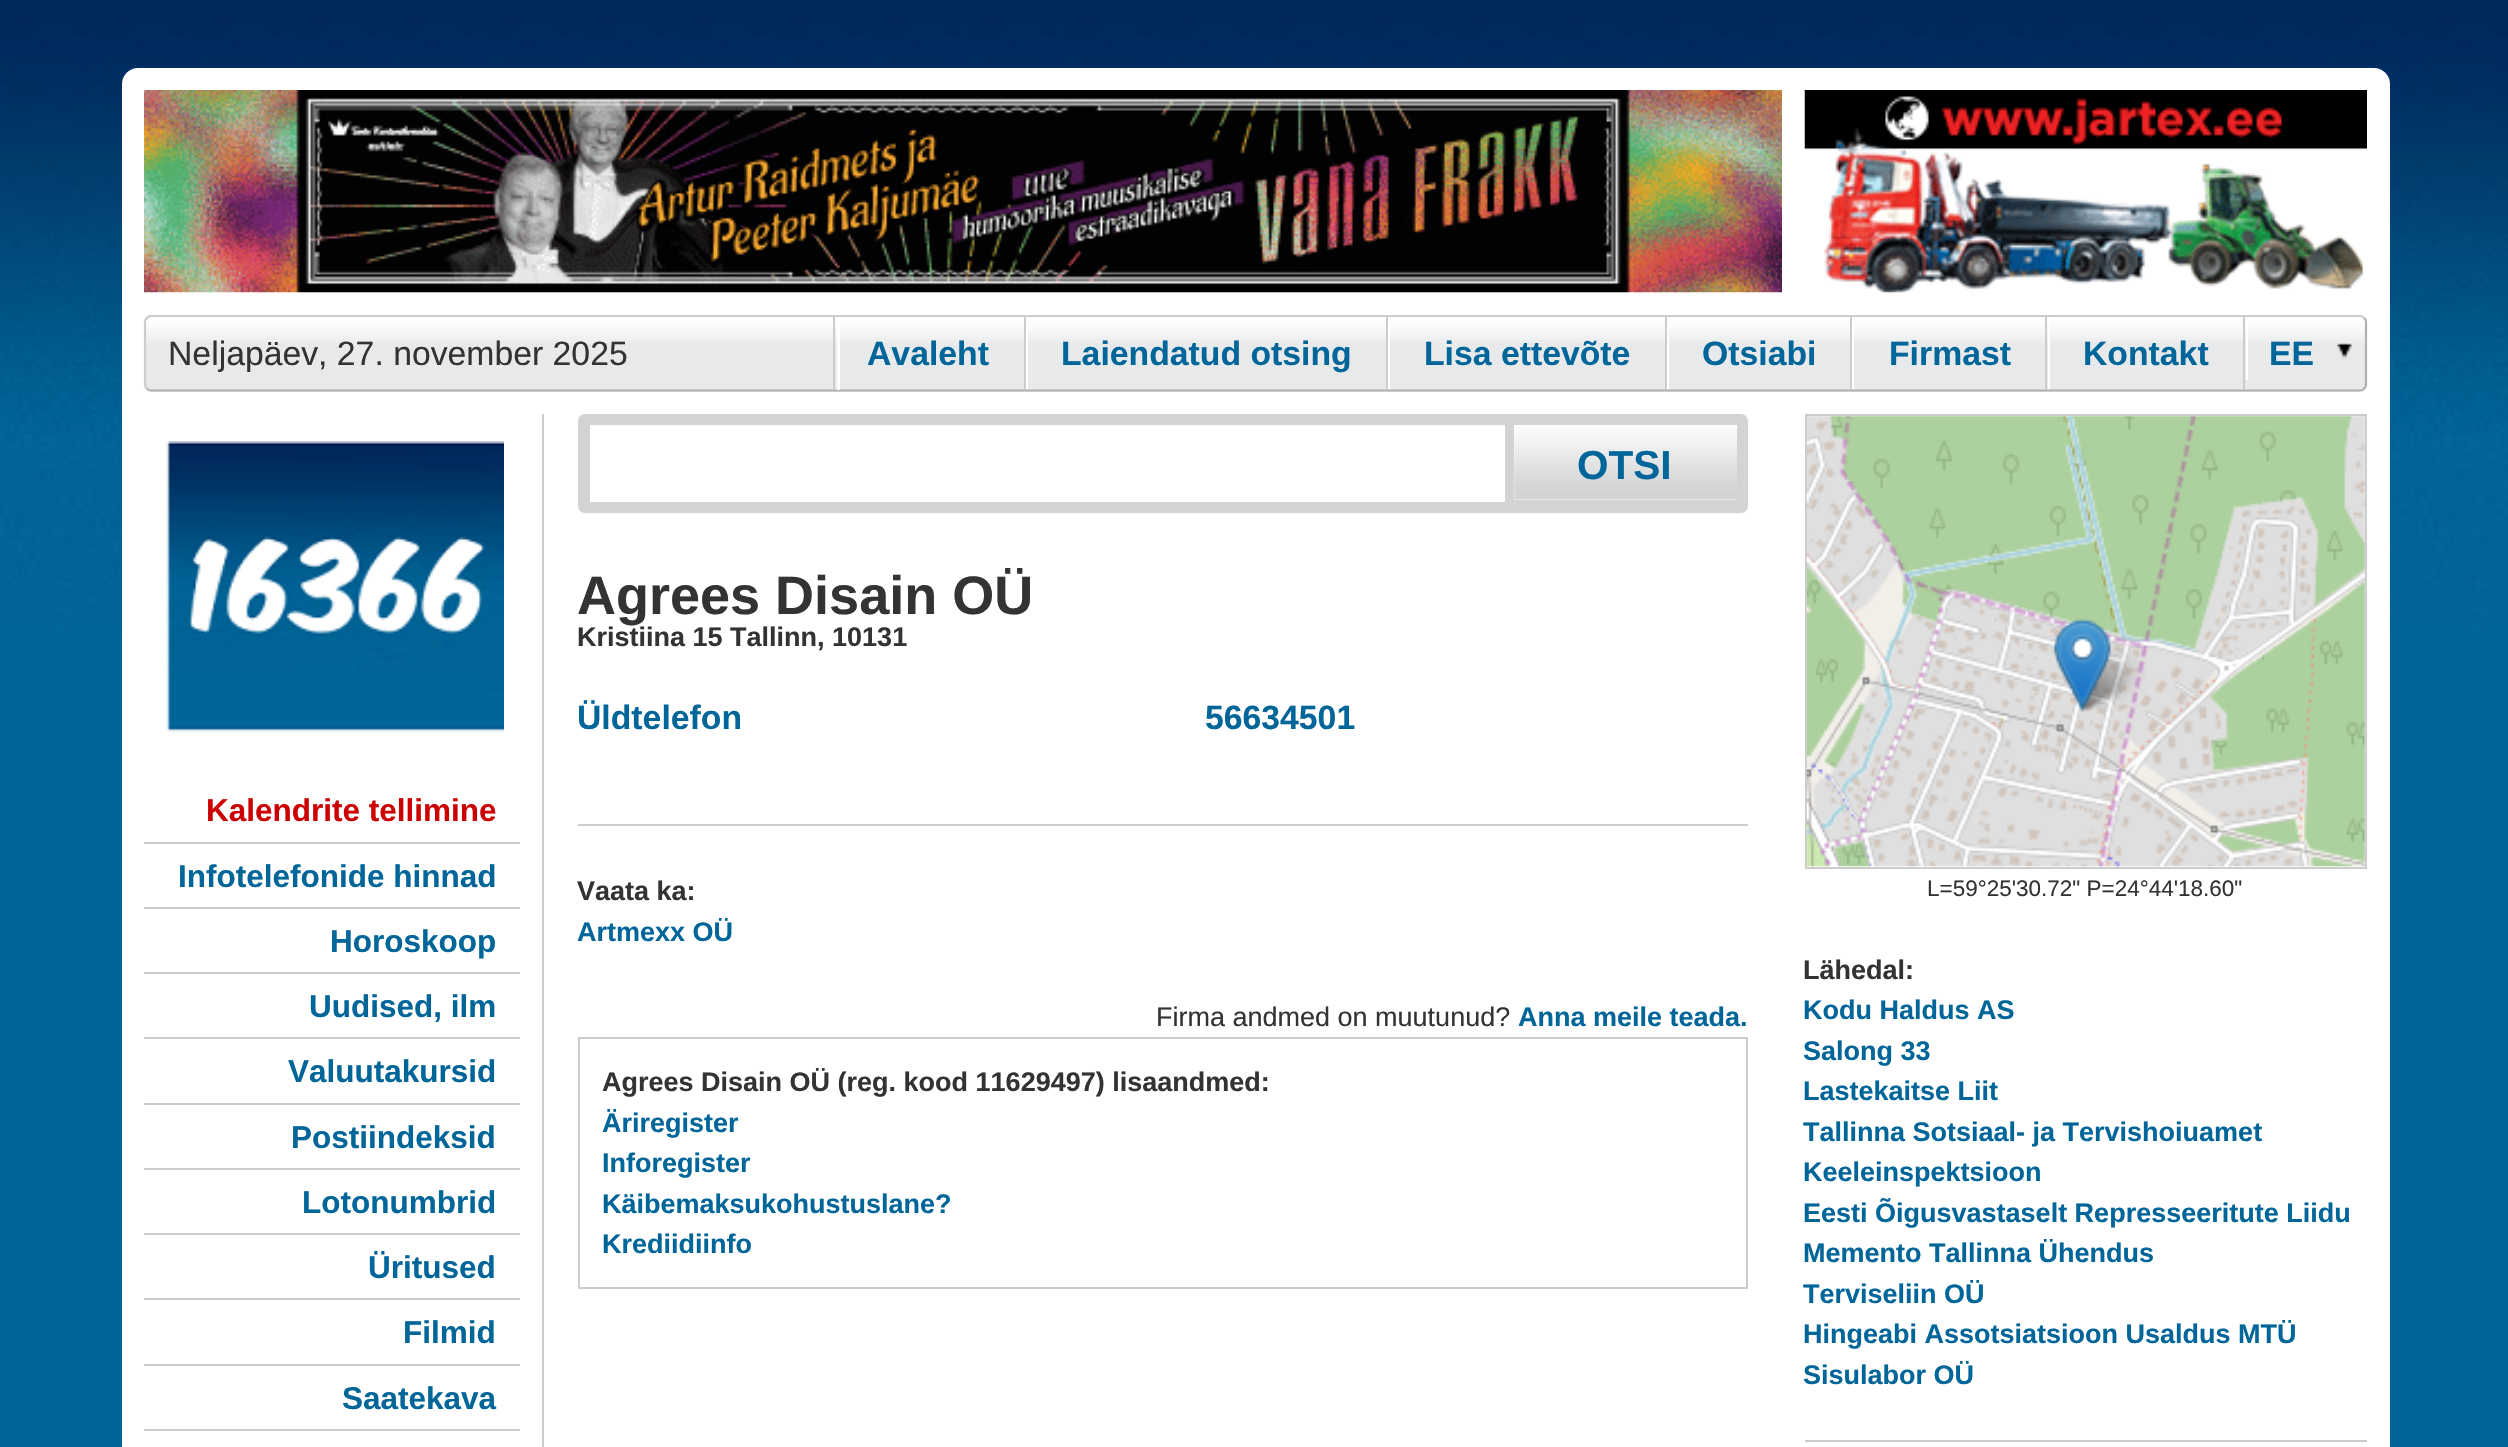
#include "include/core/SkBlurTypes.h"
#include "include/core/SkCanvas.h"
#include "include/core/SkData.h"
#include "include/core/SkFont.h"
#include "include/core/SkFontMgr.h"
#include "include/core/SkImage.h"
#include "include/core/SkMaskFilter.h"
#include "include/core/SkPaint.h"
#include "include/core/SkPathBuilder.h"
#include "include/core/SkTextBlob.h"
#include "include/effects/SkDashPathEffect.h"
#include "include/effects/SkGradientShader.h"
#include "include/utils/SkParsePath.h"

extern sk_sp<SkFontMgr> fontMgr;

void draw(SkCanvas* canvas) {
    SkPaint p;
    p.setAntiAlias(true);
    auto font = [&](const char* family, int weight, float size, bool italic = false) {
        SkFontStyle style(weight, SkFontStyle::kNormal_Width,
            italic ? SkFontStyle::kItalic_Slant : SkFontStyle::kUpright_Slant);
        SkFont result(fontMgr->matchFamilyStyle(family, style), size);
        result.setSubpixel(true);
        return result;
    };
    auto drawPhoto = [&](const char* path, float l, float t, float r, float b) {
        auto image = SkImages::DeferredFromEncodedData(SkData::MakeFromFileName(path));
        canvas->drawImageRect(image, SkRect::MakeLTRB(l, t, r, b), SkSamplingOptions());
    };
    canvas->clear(0xFF006599);
    drawPhoto("media/1.png", 0, 0, 2508, 630);
    p.setColor(0xFFFFFFFF);
    canvas->drawRoundRect(SkRect::MakeLTRB(122, 68, 2390, 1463), 16, 16, p);
    drawPhoto("media/2.png", 144, 90, 1782, 293);
    drawPhoto("media/3.png", 1804, 90, 2367, 293);
    p.setColor(0xFFE8E9EA);
    canvas->drawRoundRect(SkRect::MakeLTRB(144, 315, 2367, 392), 7, 7, p);
    drawPhoto("media/4.png", 144, 317, 2367, 343);
    p.setStyle(SkPaint::kStroke_Style);
    p.setStrokeWidth(2.2f);
    p.setColor(0xFFB0B0B0);
    canvas->drawPath(SkPathBuilder().moveTo(2364, 318).cubicTo(2365.5f, 319, 2366, 320.5f, 2366, 322).lineTo(2366, 385).cubicTo(2366, 386, 2365.5f, 387.5f, 2364, 388.5f).cubicTo(2363, 390, 2361.5f, 390.5f, 2360, 390.5f).lineTo(151, 390.5f).cubicTo(149.5f, 390.5f, 148, 390, 147, 388.5f).detach(), p);
    p.setColor(0xFFCCCCCC);
    canvas->drawPath(SkPathBuilder().moveTo(147, 388.5f).cubicTo(145.5f, 387.5f, 145, 386, 145, 385).lineTo(145, 322).cubicTo(145, 320.5f, 145.5f, 319, 147, 318).cubicTo(148, 316.5f, 149.5f, 316, 151, 316).lineTo(2360, 316).cubicTo(2361.5f, 316, 2363, 316.5f, 2364, 318).detach(), p);
    auto font1 = font("Liberation Sans", 400, 33.75f);
    p.setStyle(SkPaint::kFill_Style);
    p.setColor(0xFF333333);
    canvas->drawString("Neljapäev, 27. november 2025", 168, 365, font1, p);
    {
        const struct { float l, t, r, b; SkColor color; } items[] = {
            {837, 317, 840, 390, 0xFFFFFFFF},
            {1024, 317, 1026, 389, 0xFFCCCCCC},
            {833, 317, 835, 389, 0xFFCCCCCC},
        };
        for (auto [l, t, r, b, color] : items) {
            p.setColor(color);
            canvas->drawRect(SkRect::MakeLTRB(l, t, r, b), p);
        }
    }
    auto font2 = font("Liberation Sans", 700, 33.75f);
    p.setColor(0xFF006599);
    canvas->drawString("Avaleht", 867, 365, font2, p);
    p.setColor(0xFFCCCCCC);
    canvas->drawRect(SkRect::MakeLTRB(1386, 317, 1388, 389), p);
    p.setColor(0xFFFFFFFF);
    canvas->drawRect(SkRect::MakeLTRB(1026, 317, 1028, 389), p);
    p.setColor(0xFF006599);
    canvas->drawString("Laiendatud otsing", 1061, 365, font2, p);
    p.setColor(0xFFCCCCCC);
    canvas->drawRect(SkRect::MakeLTRB(1665, 317, 1667, 389), p);
    p.setColor(0xFFFFFFFF);
    canvas->drawRect(SkRect::MakeLTRB(1388, 317, 1390, 389), p);
    p.setColor(0xFF006599);
    canvas->drawString("Lisa ettevõte", 1424, 365, font2, p);
    p.setColor(0xFFCCCCCC);
    canvas->drawRect(SkRect::MakeLTRB(1850, 317, 1852, 389), p);
    p.setColor(0xFFFFFFFF);
    canvas->drawRect(SkRect::MakeLTRB(1667, 317, 1669, 389), p);
    p.setColor(0xFF006599);
    canvas->drawString("Otsiabi", 1702, 365, font2, p);
    p.setColor(0xFFCCCCCC);
    canvas->drawRect(SkRect::MakeLTRB(2045, 317, 2047, 389), p);
    p.setColor(0xFFFFFFFF);
    canvas->drawRect(SkRect::MakeLTRB(1852, 317, 1854, 389), p);
    p.setColor(0xFF006599);
    canvas->drawString("Firmast", 1889, 365, font2, p);
    p.setColor(0xFFCCCCCC);
    canvas->drawRect(SkRect::MakeLTRB(2243, 317, 2245, 389), p);
    p.setColor(0xFFFFFFFF);
    canvas->drawRect(SkRect::MakeLTRB(2048, 317, 2050, 389), p);
    p.setColor(0xFF006599);
    canvas->drawString("Kontakt", 2083, 365, font2, p);
    p.setColor(0xFFFFFFFF);
    canvas->drawRect(SkRect::MakeLTRB(2246, 317, 2248, 380), p);
    drawPhoto("media/5.png", 2337, 343, 2352, 359);
    p.setColor(0xFF006599);
    canvas->drawString("EE", 2269, 365, font2, p);
    p.setColor(0xFFCCCCCC);
    canvas->drawRect(SkRect::MakeLTRB(542, 414, 544, 1447), p);
    drawPhoto("media/6.png", 166, 441, 504, 733);
    canvas->drawRect(SkRect::MakeLTRB(144, 842, 520, 844), p);
    auto font3 = font("Liberation Sans", 700, 31.5f);
    p.setColor(0xFFCC0000);
    canvas->drawString("Kalendrite tellimine", 206, 821, font3, p);
    p.setColor(0xFFCCCCCC);
    canvas->drawRect(SkRect::MakeLTRB(144, 907, 520, 909), p);
    p.setColor(0xFF006599);
    canvas->drawString("Infotelefonide hinnad", 178, 887, font3, p);
    p.setColor(0xFFCCCCCC);
    canvas->drawRect(SkRect::MakeLTRB(144, 972, 520, 974), p);
    p.setColor(0xFF006599);
    canvas->drawString("Horoskoop", 330, 952, font3, p);
    p.setColor(0xFFCCCCCC);
    canvas->drawRect(SkRect::MakeLTRB(144, 1037, 520, 1039), p);
    p.setColor(0xFF006599);
    canvas->drawString("Uudised, ilm", 309, 1017, font3, p);
    p.setColor(0xFFCCCCCC);
    canvas->drawRect(SkRect::MakeLTRB(144, 1103, 520, 1105), p);
    p.setColor(0xFF006599);
    canvas->drawString("Valuutakursid", 288, 1082, font3, p);
    p.setColor(0xFFCCCCCC);
    canvas->drawRect(SkRect::MakeLTRB(144, 1168, 520, 1170), p);
    p.setColor(0xFF006599);
    canvas->drawString("Postiindeksid", 291, 1148, font3, p);
    p.setColor(0xFFCCCCCC);
    canvas->drawRect(SkRect::MakeLTRB(144, 1233, 520, 1235), p);
    p.setColor(0xFF006599);
    canvas->drawString("Lotonumbrid", 302, 1213, font3, p);
    p.setColor(0xFFCCCCCC);
    canvas->drawRect(SkRect::MakeLTRB(144, 1298, 520, 1300), p);
    p.setColor(0xFF006599);
    canvas->drawString("Üritused", 368, 1278, font3, p);
    p.setColor(0xFFCCCCCC);
    canvas->drawRect(SkRect::MakeLTRB(144, 1364, 520, 1366), p);
    p.setColor(0xFF006599);
    canvas->drawString("Filmid", 403, 1343, font3, p);
    p.setColor(0xFFCCCCCC);
    canvas->drawRect(SkRect::MakeLTRB(144, 1429, 520, 1431), p);
    p.setColor(0xFF006599);
    canvas->drawString("Saatekava", 342, 1409, font3, p);
    p.setColor(0xFFD2D3D5);
    canvas->drawRoundRect(SkRect::MakeLTRB(578, 414, 1748, 513), 7, 7, p);
    p.setColor(0xFFFFFFFF);
    canvas->drawRect(SkRect::MakeLTRB(590, 425, 1505, 502), p);
    canvas->drawRect(SkRect::MakeLTRB(1514, 425, 1737, 500), p);
    drawPhoto("media/7.png", 1514, 428, 1737, 500);
    auto font4 = font("Liberation Sans", 700, 40.5f);
    p.setColor(0xFF006599);
    canvas->drawString("OTSI", 1577, 479, font4, p);
    auto font5 = font("Liberation Sans", 700, 54);
    p.setColor(0xFF333333);
    canvas->drawString("Agrees Disain OÜ", 577, 614, font5, p);
    auto font6 = font("Liberation Sans", 700, 27);
    canvas->drawString("Kristiina 15 Tallinn, 10131", 577, 646, font6, p);
    p.setColor(0xFF006599);
    canvas->drawString("Üldtelefon", 577, 729, font2, p);
    canvas->drawString("56634501", 1205, 729, font2, p);
    p.setColor(0xFFCCCCCC);
    canvas->drawRect(SkRect::MakeLTRB(578, 824, 1748, 826), p);
    p.setColor(0xFF333333);
    canvas->drawString("Vaata ka:", 577, 900, font6, p);
    p.setColor(0xFF006599);
    canvas->drawString("Artmexx OÜ", 577, 941, font6, p);
    auto font7 = font("Liberation Sans", 400, 27);
    p.setColor(0xFF333333);
    canvas->drawString("Firma andmed on muutunud?", 1156, 1026, font7, p);
    p.setColor(0xFF006599);
    canvas->drawString("Anna meile teada.", 1518, 1026, font6, p);
    p.setStyle(SkPaint::kStroke_Style);
    p.setStrokeWidth(2);
    p.setColor(0xFFCCCCCC);
    canvas->drawRect(SkRect::MakeLTRB(579, 1038, 1747, 1288), p);
    p.setStyle(SkPaint::kFill_Style);
    p.setColor(0xFF333333);
    canvas->drawString("Agrees Disain OÜ (reg. kood 11629497) lisaandmed:", 602, 1091, font6, p);
    p.setColor(0xFF006599);
    {
        const struct { const char* s; float x, y; } items[] = {
            {"Äriregister", 602, 1132},
            {"Inforegister", 602, 1172},
            {"Käibemaksukohustuslane?", 602, 1213},
            {"Krediidiinfo", 602, 1253},
        };
        for (auto [s, x, y] : items) {
            canvas->drawString(s, x, y, font6, p);
        }
    }
    p.setStyle(SkPaint::kStroke_Style);
    p.setColor(0xFFCCCCCC);
    canvas->drawRect(SkRect::MakeLTRB(1806, 415, 2366, 868), p);
    drawPhoto("media/8.png", 1806, 416, 2365, 867);
    auto font8 = font("Liberation Sans", 400, 22.5f);
    p.setStyle(SkPaint::kFill_Style);
    p.setColor(0xFF333333);
    canvas->drawString("L=59°25'30.72\" P=24°44'18.60\"", 1927, 896, font8, p);
    canvas->drawString("Lähedal:", 1803, 979, font6, p);
    p.setColor(0xFF006599);
    {
        const struct { const char* s; float x, y; } items[] = {
            {"Kodu Haldus AS", 1803, 1019},
            {"Salong 33", 1803, 1060},
            {"Lastekaitse Liit", 1803, 1100},
            {"Tallinna Sotsiaal- ja Tervishoiuamet", 1803, 1141},
            {"Keeleinspektsioon", 1803, 1181},
            {"Eesti Õigusvastaselt Represseeritute Liidu", 1803, 1222},
            {"Memento Tallinna Ühendus", 1803, 1262},
            {"Terviseliin OÜ", 1803, 1303},
            {"Hingeabi Assotsiatsioon Usaldus MTÜ", 1803, 1343},
            {"Sisulabor OÜ", 1803, 1384},
        };
        for (auto [s, x, y] : items) {
            canvas->drawString(s, x, y, font6, p);
        }
    }
    p.setColor(0xFFCCCCCC);
    canvas->drawRect(SkRect::MakeLTRB(1805, 1440, 2367, 1442), p);
}
